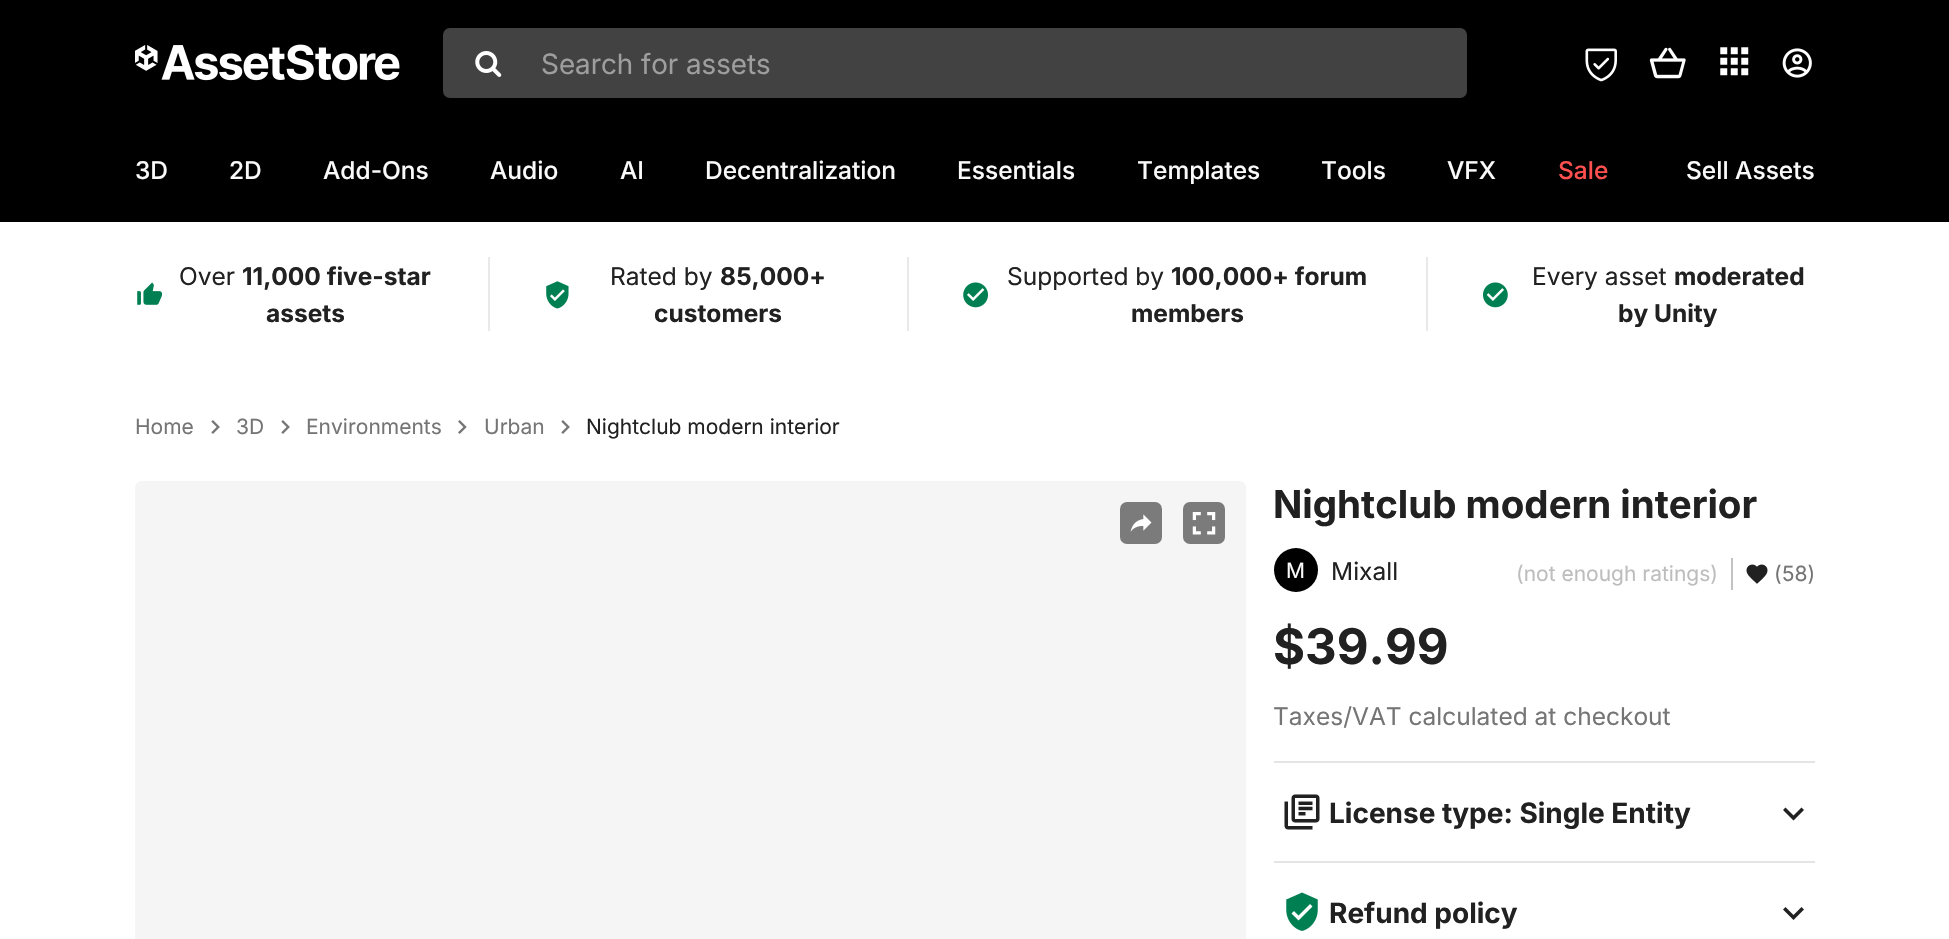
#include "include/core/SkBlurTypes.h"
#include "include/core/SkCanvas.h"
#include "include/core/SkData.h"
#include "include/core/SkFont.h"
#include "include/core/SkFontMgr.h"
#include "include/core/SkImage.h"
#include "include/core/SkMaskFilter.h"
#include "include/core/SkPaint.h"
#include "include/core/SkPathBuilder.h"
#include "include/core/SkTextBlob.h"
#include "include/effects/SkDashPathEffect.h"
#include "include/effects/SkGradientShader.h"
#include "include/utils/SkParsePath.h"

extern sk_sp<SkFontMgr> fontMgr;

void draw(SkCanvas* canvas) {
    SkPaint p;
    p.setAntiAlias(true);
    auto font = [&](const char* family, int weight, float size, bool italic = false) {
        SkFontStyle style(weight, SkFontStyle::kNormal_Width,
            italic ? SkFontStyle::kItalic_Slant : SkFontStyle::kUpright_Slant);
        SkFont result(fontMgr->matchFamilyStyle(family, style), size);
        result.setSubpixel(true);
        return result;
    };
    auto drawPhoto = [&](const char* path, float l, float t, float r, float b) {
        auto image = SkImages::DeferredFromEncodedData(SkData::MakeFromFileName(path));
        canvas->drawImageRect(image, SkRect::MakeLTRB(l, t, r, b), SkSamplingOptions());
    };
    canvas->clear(0xFFFFFFFF);
    p.setColor(0xFF000000);
    canvas->drawRect(SkRect::MakeLTRB(0, 0, 1949, 222), p);
    drawPhoto("media/1.png", 135, 44, 400, 81);
    p.setColor(0xFF424242);
    canvas->drawRoundRect(SkRect::MakeLTRB(443, 28, 1467, 98), 7, 7, p);
    drawPhoto("media/2.png", 475, 51, 502, 77);
    auto font1 = font("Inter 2", 400, 28);
    p.setColor(0xFF9E9E9E);
    canvas->drawString("Search for assets", 541, 74, font1, p);
    drawPhoto("media/3.png", 1585, 48, 1617, 82);
    drawPhoto("media/4.png", 1649, 47, 1686, 79);
    drawPhoto("media/5.png", 1720, 47, 1749, 76);
    drawPhoto("media/6.png", 1782, 48, 1812, 78);
    auto font2 = font("Inter", 500, 24.5f);
    p.setColor(0xFFFAFAFA);
    {
        const struct { const char* s; float x, y; } items[] = {
            {"3D", 135, 179},
            {"2D", 229, 179},
            {"Add-Ons", 323, 179},
            {"Audio", 490, 179},
            {"AI", 620, 179},
            {"Decentralization", 705, 179},
            {"Essentials", 957, 179},
            {"Templates", 1137, 179},
            {"Tools", 1321, 179},
            {"VFX", 1447, 179},
        };
        for (auto [s, x, y] : items) {
            canvas->drawString(s, x, y, font2, p);
        }
    }
    p.setColor(0xFFFF5050);
    canvas->drawString("Sale", 1558, 179, font2, p);
    p.setColor(0xFFFAFAFA);
    canvas->drawString("Sell Assets", 1686, 179, font2, p);
    drawPhoto("media/7.png", 137, 282, 163, 305);
    auto font3 = font("Inter", 400, 24.5f);
    p.setColor(0xFF212121);
    canvas->drawString("Over", 179, 285, font3, p);
    auto font4 = font("Inter", 700, 24.5f);
    canvas->drawString("11,000 five-star", 242, 285, font4, p);
    canvas->drawString("assets", 266, 322, font4, p);
    p.setColor(0xFFE9E9E9);
    canvas->drawRect(SkRect::MakeLTRB(907, 257, 909, 331), p);
    canvas->drawRect(SkRect::MakeLTRB(488, 257, 490, 331), p);
    drawPhoto("media/8.png", 546, 281, 569, 309);
    p.setColor(0xFF212121);
    canvas->drawString("Rated by", 610, 285, font3, p);
    canvas->drawString("85,000+", 720, 285, font4, p);
    canvas->drawString("customers", 654, 322, font4, p);
    p.setColor(0xFFE9E9E9);
    canvas->drawRect(SkRect::MakeLTRB(1426, 257, 1428, 331), p);
    drawPhoto("media/9.png", 963, 282, 988, 308);
    p.setColor(0xFF212121);
    canvas->drawString("Supported by", 1007, 285, font3, p);
    canvas->drawString("100,000+ forum", 1171, 285, font4, p);
    canvas->drawString("members", 1131, 322, font4, p);
    drawPhoto("media/10.png", 1483, 282, 1508, 308);
    canvas->drawString("Every asset", 1532, 285, font3, p);
    canvas->drawString("moderated", 1674, 285, font4, p);
    canvas->drawString("by Unity", 1618, 322, font4, p);
    auto font5 = font("Inter", 400, 21);
    p.setColor(0xFF757575);
    canvas->drawString("Home", 135, 434, font5, p);
    drawPhoto("media/11.png", 211, 420, 220, 434);
    canvas->drawString("3D", 236, 434, font5, p);
    drawPhoto("media/11.png", 281, 420, 290, 434);
    canvas->drawString("Environments", 306, 434, font5, p);
    drawPhoto("media/12.png", 458, 420, 467, 434);
    canvas->drawString("Urban", 484, 434, font5, p);
    drawPhoto("media/11.png", 561, 420, 570, 434);
    p.setColor(0xFF212121);
    canvas->drawString("Nightclub modern interior", 586, 434, font5, p);
    p.setColor(0xFFF5F5F5);
    canvas->drawPath(SkPathBuilder().moveTo(142, 481).lineTo(1239, 481).cubicTo(1243, 481, 1246, 484, 1246, 488).lineTo(1246, 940).lineTo(135, 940).lineTo(135, 488).cubicTo(135, 484, 138, 481, 142, 481).close().detach(), p);
    p.setColor(0xFF7B7B7B);
    canvas->drawRoundRect(SkRect::MakeLTRB(1120, 502, 1162, 544), 7, 7, p);
    drawPhoto("media/13.png", 1130, 514, 1152, 532);
    canvas->drawRoundRect(SkRect::MakeLTRB(1183, 502, 1225, 544), 7, 7, p);
    drawPhoto("media/14.png", 1192, 512, 1216, 535);
    auto font6 = font("Inter", 700, 38.5f);
    p.setColor(0xFF212121);
    canvas->drawString("Nightclub modern interior", 1273, 518, font6, p);
    p.setColor(0xFF000000);
    canvas->drawCircle(1296, 570, 22, p);
    p.setColor(0xFFFAFAFA);
    canvas->drawString("M", 1286, 578, font5, p);
    p.setColor(0xFF212121);
    canvas->drawString("Mixall", 1331, 580, font3, p);
    p.setColor(0xFFBDBDBD);
    canvas->drawString("(not enough ratings)", 1516, 581, font5, p);
    p.setColor(0xFFC2C2C2);
    canvas->drawRect(SkRect::MakeLTRB(1731, 558, 1733, 590), p);
    drawPhoto("media/15.png", 1746, 564, 1768, 584);
    p.setColor(0xFF757575);
    canvas->drawString("(58)", 1774, 581, font5, p);
    auto font7 = font("Inter", 700, 49);
    p.setColor(0xFF212121);
    canvas->drawString("$39.99", 1273, 664, font7, p);
    p.setColor(0xFF757575);
    canvas->drawString("Taxes/VAT calculated at checkout", 1273, 725, font3, p);
    p.setColor(0xFFE4E4E4);
    canvas->drawRect(SkRect::MakeLTRB(1274, 761, 1815, 763), p);
    drawPhoto("media/16.png", 1284, 794, 1320, 830);
    auto font8 = font("Inter", 700, 28);
    p.setColor(0xFF212121);
    canvas->drawString("License type: Single Entity", 1329, 823, font8, p);
    canvas->drawPath(SkPathBuilder().moveTo(1793.5f, 820.5f).lineTo(1804, 810).lineTo(1801.5f, 807.5f).lineTo(1793.5f, 815.5f).lineTo(1785.5f, 807.5f).lineTo(1783, 810).close().detach(), p);
    p.setColor(0xFFE4E4E4);
    canvas->drawRect(SkRect::MakeLTRB(1274, 861, 1815, 863), p);
    drawPhoto("media/17.png", 1286, 892, 1318, 931);
    p.setColor(0xFF212121);
    canvas->drawString("Refund policy", 1329, 923, font8, p);
    canvas->drawPath(SkPathBuilder().moveTo(1793.5f, 920).lineTo(1804, 909.5f).lineTo(1801.5f, 907).lineTo(1793.5f, 915).lineTo(1785.5f, 907).lineTo(1783, 909.5f).close().detach(), p);
}
